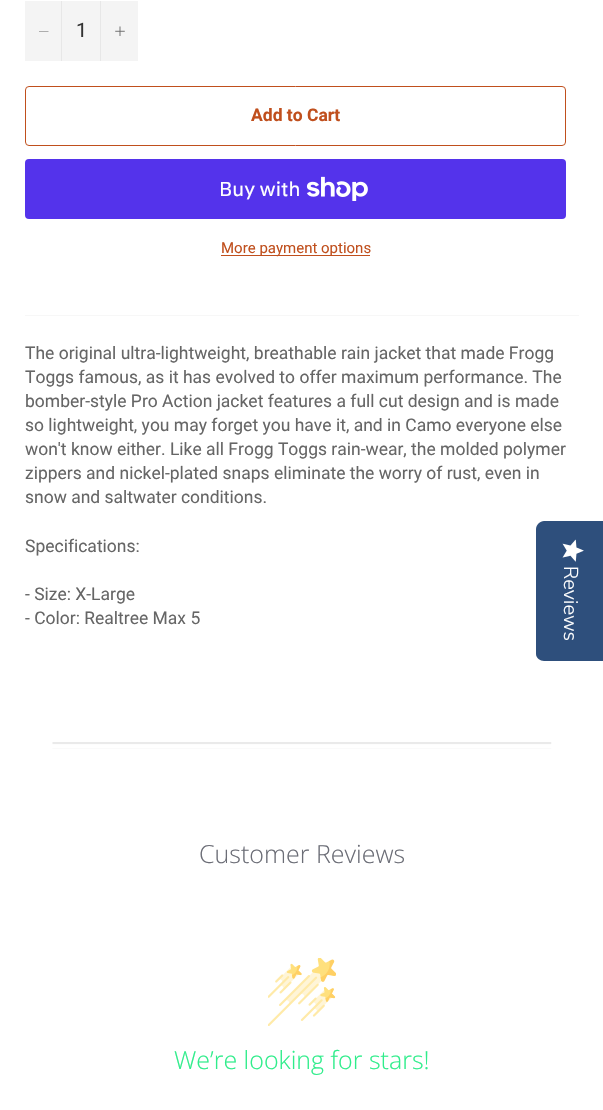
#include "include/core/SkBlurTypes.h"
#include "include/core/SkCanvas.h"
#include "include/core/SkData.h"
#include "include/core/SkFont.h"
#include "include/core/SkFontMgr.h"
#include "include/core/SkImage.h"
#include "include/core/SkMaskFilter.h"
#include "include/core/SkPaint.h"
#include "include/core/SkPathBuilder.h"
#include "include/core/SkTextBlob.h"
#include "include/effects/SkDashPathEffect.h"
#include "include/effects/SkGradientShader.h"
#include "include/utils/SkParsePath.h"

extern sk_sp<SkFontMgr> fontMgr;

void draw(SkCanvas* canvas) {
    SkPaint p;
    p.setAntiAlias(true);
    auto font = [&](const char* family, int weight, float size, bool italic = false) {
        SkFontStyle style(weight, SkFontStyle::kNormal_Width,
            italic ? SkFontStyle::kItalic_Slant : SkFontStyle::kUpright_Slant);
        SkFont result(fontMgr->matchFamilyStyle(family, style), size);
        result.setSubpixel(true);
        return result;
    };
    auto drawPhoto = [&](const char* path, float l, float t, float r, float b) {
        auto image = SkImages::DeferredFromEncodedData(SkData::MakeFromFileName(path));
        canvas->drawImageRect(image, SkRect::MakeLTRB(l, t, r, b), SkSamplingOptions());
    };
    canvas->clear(0xFFFFFFFF);
    p.setColor(0xFFF4F4F4);
    canvas->drawRect(SkRect::MakeLTRB(25, 1, 138, 61), p);
    p.setColor(0xFFE7E7E7);
    canvas->drawRect(SkRect::MakeLTRB(61, 1, 62, 61), p);
    p.setColor(0xFF666666);
    canvas->drawPath(SkPathBuilder(SkPathFillType::kEvenOdd).moveTo(48.5f, 31).lineTo(48.5f, 31.5f).lineTo(39, 31.5f).lineTo(39, 31).close().detach(), p);
    auto font1 = font("Roboto", 400, 20);
    p.setColor(0xFF333333);
    canvas->drawString("1", 76, 37, font1, p);
    p.setColor(0xFFE7E7E7);
    canvas->drawRect(SkRect::MakeLTRB(100, 1, 101, 61), p);
    drawPhoto("media/1.png", 115, 26, 125, 36);
    p.setStyle(SkPaint::kStroke_Style);
    p.setStrokeWidth(1);
    p.setColor(0xFFC04F1D);
    canvas->drawRoundRect(SkRect::MakeLTRB(25.5f, 86.5f, 565.5f, 145.5f), 3.5f, 3.5f, p);
    auto font2 = font("Roboto", 700, 17.5f);
    p.setStyle(SkPaint::kFill_Style);
    canvas->drawString("Add to Cart", 251, 121, font2, p);
    p.setColor(0xFF5433EB);
    canvas->drawRoundRect(SkRect::MakeLTRB(25, 159, 566, 219), 4, 4, p);
    auto font3 = font("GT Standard", 400, 20);
    p.setColor(0xFFFFFFFF);
    canvas->drawString("Buy with", 219, 196, font3, p);
    drawPhoto("media/2.png", 306, 176, 368, 201);
    p.setColor(0xFFC04F1D);
    canvas->drawRect(SkRect::MakeLTRB(221, 255, 370, 256), p);
    auto font4 = font("Roboto", 400, 15);
    canvas->drawString("More payment options", 221, 253, font4, p);
    p.setColor(0xFFF7F7F7);
    canvas->drawRect(SkRect::MakeLTRB(25, 315, 579, 316), p);
    auto font5 = font("Roboto", 400, 17.5f);
    p.setColor(0xFF666666);
    {
        const struct { const char* s; float x, y; } items[] = {
            {"The original ultra-lightweight, breathable rain jacket that made Frogg", 25, 359},
            {"Toggs famous, as it has evolved to offer maximum performance. The", 25, 383},
            {"bomber-style Pro Action jacket features a full cut design and is made", 25, 407},
            {"so lightweight, you may forget you have it, and in Camo everyone else", 25, 431},
            {"won't know either. Like all Frogg Toggs rain-wear, the molded polymer", 25, 455},
            {"zippers and nickel-plated snaps eliminate the worry of rust, even in", 25, 479},
            {"snow and saltwater conditions.", 25, 503},
            {"Specifications:", 25, 552},
            {"- Size: X-Large", 25, 600},
            {"- Color: Realtree Max 5", 25, 624},
        };
        for (auto [s, x, y] : items) {
            canvas->drawString(s, x, y, font5, p);
        }
    }
    drawPhoto("media/3.png", 52, 742, 552, 749);
    auto font6 = font("Open Sans", 300, 25);
    p.setColor(0xFF6B6D76);
    canvas->drawString("Customer Reviews", 199, 863, font6, p);
    drawPhoto("media/4.png", 268, 958, 336, 1026);
    p.setColor(0xFF2FED8B);
    canvas->drawString("We’re looking for stars!", 174, 1069, font6, p);
    p.setColor(0xFF2E4F7C);
    canvas->drawPath(SkPathBuilder().moveTo(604, 521).lineTo(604, 661).lineTo(544, 661).cubicTo(540, 661, 536, 658, 536, 654).lineTo(536, 529).cubicTo(536, 525, 540, 521, 544, 521).close().detach(), p);
    drawPhoto("media/5.png", 562, 539, 584, 562);
    auto font7 = font("Nunito Sans", 300, 20);
    p.setColor(0xFFFFFFFF);
    canvas->save();
    canvas->rotate(90, 564, 566);
    canvas->drawString("Reviews", 564, 566, font7, p);
    canvas->restore();
}
